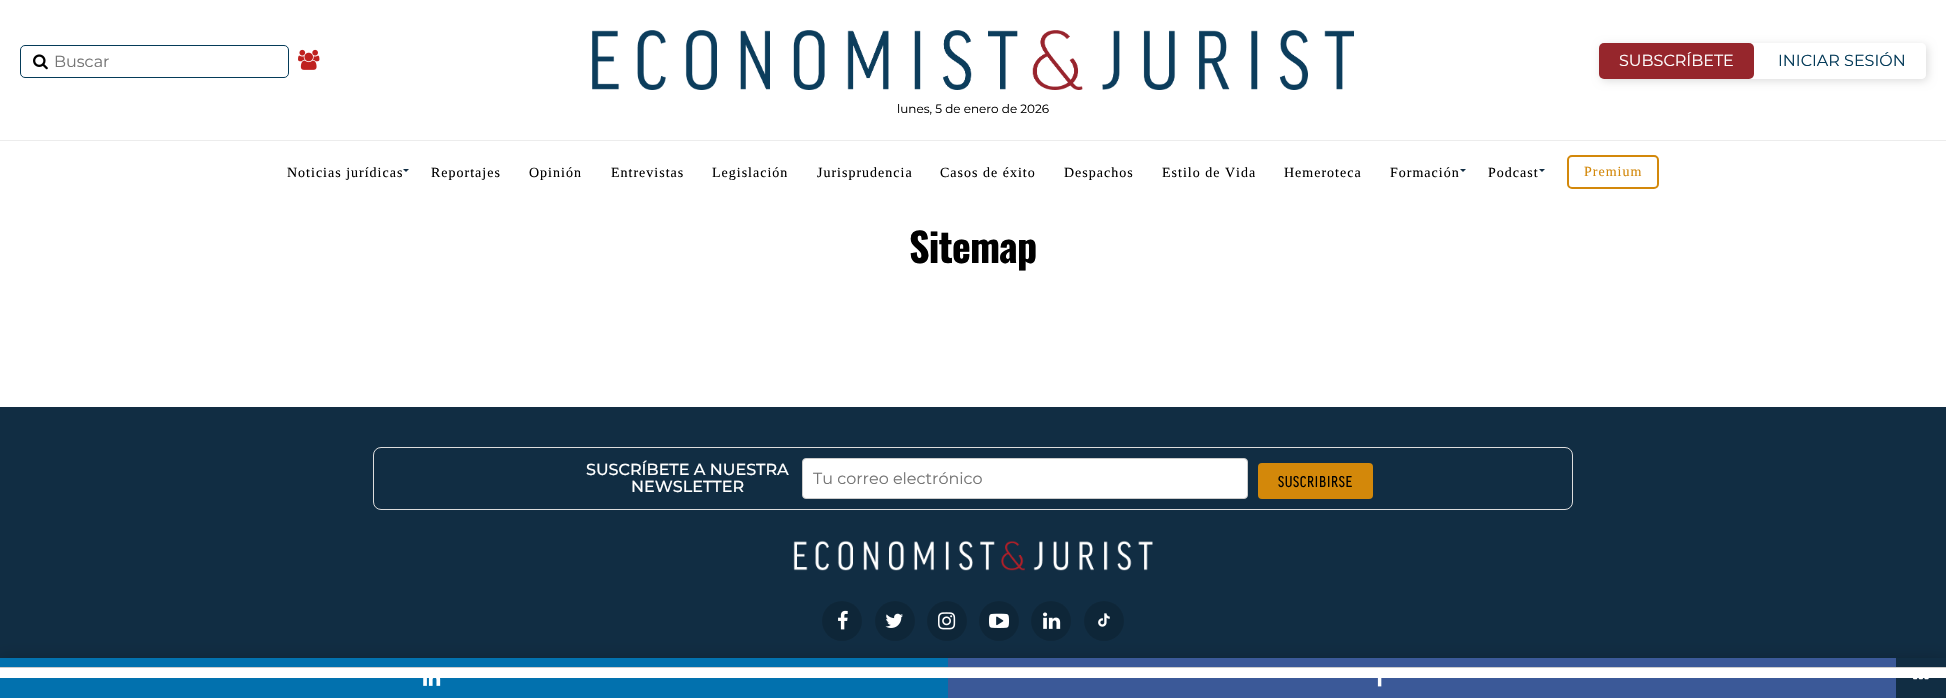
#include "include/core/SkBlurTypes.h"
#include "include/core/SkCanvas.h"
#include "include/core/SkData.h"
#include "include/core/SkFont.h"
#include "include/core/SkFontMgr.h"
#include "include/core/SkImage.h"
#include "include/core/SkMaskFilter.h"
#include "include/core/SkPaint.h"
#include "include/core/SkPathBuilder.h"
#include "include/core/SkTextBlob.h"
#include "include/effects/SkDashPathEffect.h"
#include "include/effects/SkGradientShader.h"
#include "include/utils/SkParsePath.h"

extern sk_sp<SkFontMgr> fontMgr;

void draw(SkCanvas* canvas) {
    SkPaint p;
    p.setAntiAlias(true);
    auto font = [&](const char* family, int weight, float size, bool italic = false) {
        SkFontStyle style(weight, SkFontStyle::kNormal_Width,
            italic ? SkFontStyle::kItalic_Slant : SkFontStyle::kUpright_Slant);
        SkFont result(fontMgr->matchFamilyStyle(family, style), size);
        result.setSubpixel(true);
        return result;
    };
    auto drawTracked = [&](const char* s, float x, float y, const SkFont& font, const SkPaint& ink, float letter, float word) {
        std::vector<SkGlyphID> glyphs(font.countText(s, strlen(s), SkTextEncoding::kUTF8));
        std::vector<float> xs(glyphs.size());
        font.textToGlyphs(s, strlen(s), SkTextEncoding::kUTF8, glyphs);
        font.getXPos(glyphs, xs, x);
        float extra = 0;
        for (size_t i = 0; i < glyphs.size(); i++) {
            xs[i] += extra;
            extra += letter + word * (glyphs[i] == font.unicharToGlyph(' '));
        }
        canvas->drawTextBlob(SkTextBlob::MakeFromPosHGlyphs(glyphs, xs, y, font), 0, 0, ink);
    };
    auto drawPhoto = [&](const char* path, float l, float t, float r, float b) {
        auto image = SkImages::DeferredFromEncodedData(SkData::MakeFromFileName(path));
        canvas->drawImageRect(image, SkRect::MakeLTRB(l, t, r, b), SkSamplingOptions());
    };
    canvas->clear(0xFFFFFFFF);
    p.setColor(0xFFECECEC);
    canvas->drawRect(SkRect::MakeLTRB(0, 140, 1946, 141), p);
    p.setStyle(SkPaint::kStroke_Style);
    p.setStrokeWidth(1);
    p.setColor(0xFF053B59);
    canvas->drawRoundRect(SkRect::MakeLTRB(20.5f, 45.5f, 288.5f, 77.5f), 4.5f, 4.5f, p);
    drawPhoto("media/1.png", 33, 54, 48, 70);
    auto font1 = font("Montserrat", 400, 16);
    p.setStyle(SkPaint::kFill_Style);
    p.setColor(0xFF757575);
    canvas->drawString("Buscar", 54, 67, font1, p);
    drawPhoto("media/2.png", 298, 49, 320, 70);
    drawPhoto("media/3.png", 592, 30, 1354, 90);
    canvas->save();
    canvas->clipPath(SkPathBuilder(SkPathFillType::kEvenOdd).moveTo(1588, 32).lineTo(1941, 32).lineTo(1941, 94).lineTo(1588, 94).close().moveTo(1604, 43).lineTo(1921, 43).cubicTo(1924, 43, 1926, 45, 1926, 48).lineTo(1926, 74).cubicTo(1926, 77, 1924, 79, 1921, 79).lineTo(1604, 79).cubicTo(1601, 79, 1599, 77, 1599, 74).lineTo(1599, 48).cubicTo(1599, 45, 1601, 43, 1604, 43).close().detach(), true);
    p.setColor(0xFFDDDDDD);
    p.setMaskFilter(SkMaskFilter::MakeBlur(kNormal_SkBlurStyle, 4));
    canvas->drawRoundRect(SkRect::MakeLTRB(1601, 45, 1928, 81), 5, 5, p);
    p.setMaskFilter(nullptr);
    canvas->restore();
    p.setColor(0xFF96262C);
    canvas->drawRoundRect(SkRect::MakeLTRB(1599, 43, 1754, 79), 5, 5, p);
    p.setColor(0xFFFFFFFF);
    canvas->drawString("SUBSCRÍBETE", 1619, 66, font1, p);
    canvas->drawRoundRect(SkRect::MakeLTRB(1758, 43, 1926, 79), 5, 5, p);
    p.setColor(0xFF053B59);
    canvas->drawString("INICIAR SESIÓN", 1778, 66, font1, p);
    auto font2 = font("Montserrat", 400, 12);
    p.setColor(0xFF000000);
    canvas->drawString("lunes, 5 de enero de 2026", 897, 113, font2, p);
    auto font3 = font("Liberation Serif", 400, 14);
    drawTracked("Noticias jurídicas", 287, 177, font3, p, 1, 0);
    p.setColor(0xFF112D43);
    canvas->drawPath(SkPathBuilder().moveTo(403, 169).lineTo(409, 169).lineTo(406, 172).close().detach(), p);
    p.setColor(0xFF000000);
    {
        const struct { const char* s; float x, y; } items[] = {
            {"Reportajes", 431, 177},
            {"Opinión", 529, 177},
            {"Entrevistas", 611, 177},
            {"Legislación", 712, 177},
            {"Jurisprudencia", 817, 177},
            {"Casos de éxito", 940, 177},
            {"Despachos", 1064, 177},
            {"Estilo de Vida", 1162, 177},
            {"Hemeroteca", 1284, 177},
            {"Formación", 1390, 177},
        };
        for (auto [s, x, y] : items) {
            drawTracked(s, x, y, font3, p, 1, 0);
        }
    }
    p.setColor(0xFF112D43);
    canvas->drawPath(SkPathBuilder().moveTo(1460, 169).lineTo(1466, 169).lineTo(1463, 172).close().detach(), p);
    p.setColor(0xFF000000);
    drawTracked("Podcast", 1488, 177, font3, p, 1, 0);
    p.setColor(0xFF112D43);
    canvas->drawPath(SkPathBuilder().moveTo(1539, 169).lineTo(1545, 169).lineTo(1542, 172).close().detach(), p);
    p.setStyle(SkPaint::kStroke_Style);
    p.setStrokeWidth(2);
    p.setColor(0xFFD3880A);
    canvas->drawRoundRect(SkRect::MakeLTRB(1568, 156, 1658, 188), 4, 4, p);
    p.setStyle(SkPaint::kFill_Style);
    drawTracked("Premium", 1584, 176, font3, p, 1, 0);
    auto font4 = font("Oswald", 700, 40);
    p.setColor(0xFF000000);
    drawTracked("Sitemap", 909, 263, font4, p, -0.75f, 0);
    p.setColor(0xFF112D43);
    canvas->drawRect(SkRect::MakeLTRB(0, 407, 1946, 658), p);
    p.setColor(0xFF0E2638);
    canvas->drawCircle(842, 621, 20, p);
    canvas->drawCircle(895, 621, 20, p);
    canvas->drawCircle(947, 621, 20, p);
    canvas->drawCircle(999, 621, 20, p);
    canvas->drawCircle(1051, 621, 20, p);
    canvas->drawCircle(1104, 621, 20, p);
    p.setColor(0x33000000);
    p.setMaskFilter(SkMaskFilter::MakeBlur(kNormal_SkBlurStyle, 8));
    canvas->drawRect(SkRect::MakeLTRB(0, 658, 1946, 698), p);
    p.setMaskFilter(nullptr);
    p.setColor(0xFF0271AE);
    canvas->drawRect(SkRect::MakeLTRB(0, 658, 948, 698), p);
    drawPhoto("media/4.png", 423, 678, 441, 686);
    p.setColor(0xFF3B5998);
    canvas->drawRect(SkRect::MakeLTRB(948, 658, 1896, 698), p);
    drawPhoto("media/5.png", 1377, 678, 1382, 687);
    p.setColor(0xFF112D43);
    canvas->drawRect(SkRect::MakeLTRB(1896, 658, 1946, 698), p);
    drawPhoto("media/6.png", 1913, 678, 1929, 680);
    p.setStyle(SkPaint::kStroke_Style);
    p.setStrokeWidth(1);
    p.setColor(0xFFDDDDDD);
    canvas->drawRoundRect(SkRect::MakeLTRB(373.5f, 447.5f, 1572.5f, 509.5f), 7.5f, 7.5f, p);
    auto font5 = font("Montserrat", 500, 16);
    p.setStyle(SkPaint::kFill_Style);
    p.setColor(0xFFFFFFFF);
    canvas->drawString("SUSCRÍBETE A NUESTRA", 586, 475, font5, p);
    canvas->drawString("NEWSLETTER", 631, 492, font5, p);
    canvas->drawRoundRect(SkRect::MakeLTRB(802.5f, 458.5f, 1247.5f, 498.5f), 3.5f, 3.5f, p);
    p.setStyle(SkPaint::kStroke_Style);
    p.setColor(0xFFCCCCCC);
    canvas->drawRoundRect(SkRect::MakeLTRB(802.5f, 458.5f, 1247.5f, 498.5f), 3.5f, 3.5f, p);
    p.setStyle(SkPaint::kFill_Style);
    p.setColor(0xFF757575);
    canvas->drawString("Tu correo electrónico", 813, 484, font1, p);
    p.setColor(0xFFD3880A);
    canvas->drawRoundRect(SkRect::MakeLTRB(1258, 463, 1373, 499), 4, 4, p);
    auto font6 = font("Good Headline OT", 700, 16);
    p.setColor(0xFF000000);
    drawTracked("SUSCRIBIRSE", 1278, 487, font6, p, 1, 0);
    drawPhoto("media/7.png", 793, 540, 1153, 571);
    drawPhoto("media/8.png", 838, 610, 848, 630);
    drawPhoto("media/9.png", 885, 613, 903, 628);
    drawPhoto("media/10.png", 938, 612, 956, 630);
    drawPhoto("media/11.png", 989, 613, 1009, 628);
    drawPhoto("media/12.png", 1043, 612, 1061, 629);
    drawPhoto("media/13.png", 1098, 613, 1110, 627);
    p.setColor(0xFFFFFFFF);
    canvas->drawRect(SkRect::MakeLTRB(0, 668, 1946, 678), p);
    p.setColor(0xFFCCCCCC);
    canvas->drawRect(SkRect::MakeLTRB(0, 667, 1946, 668), p);
}
